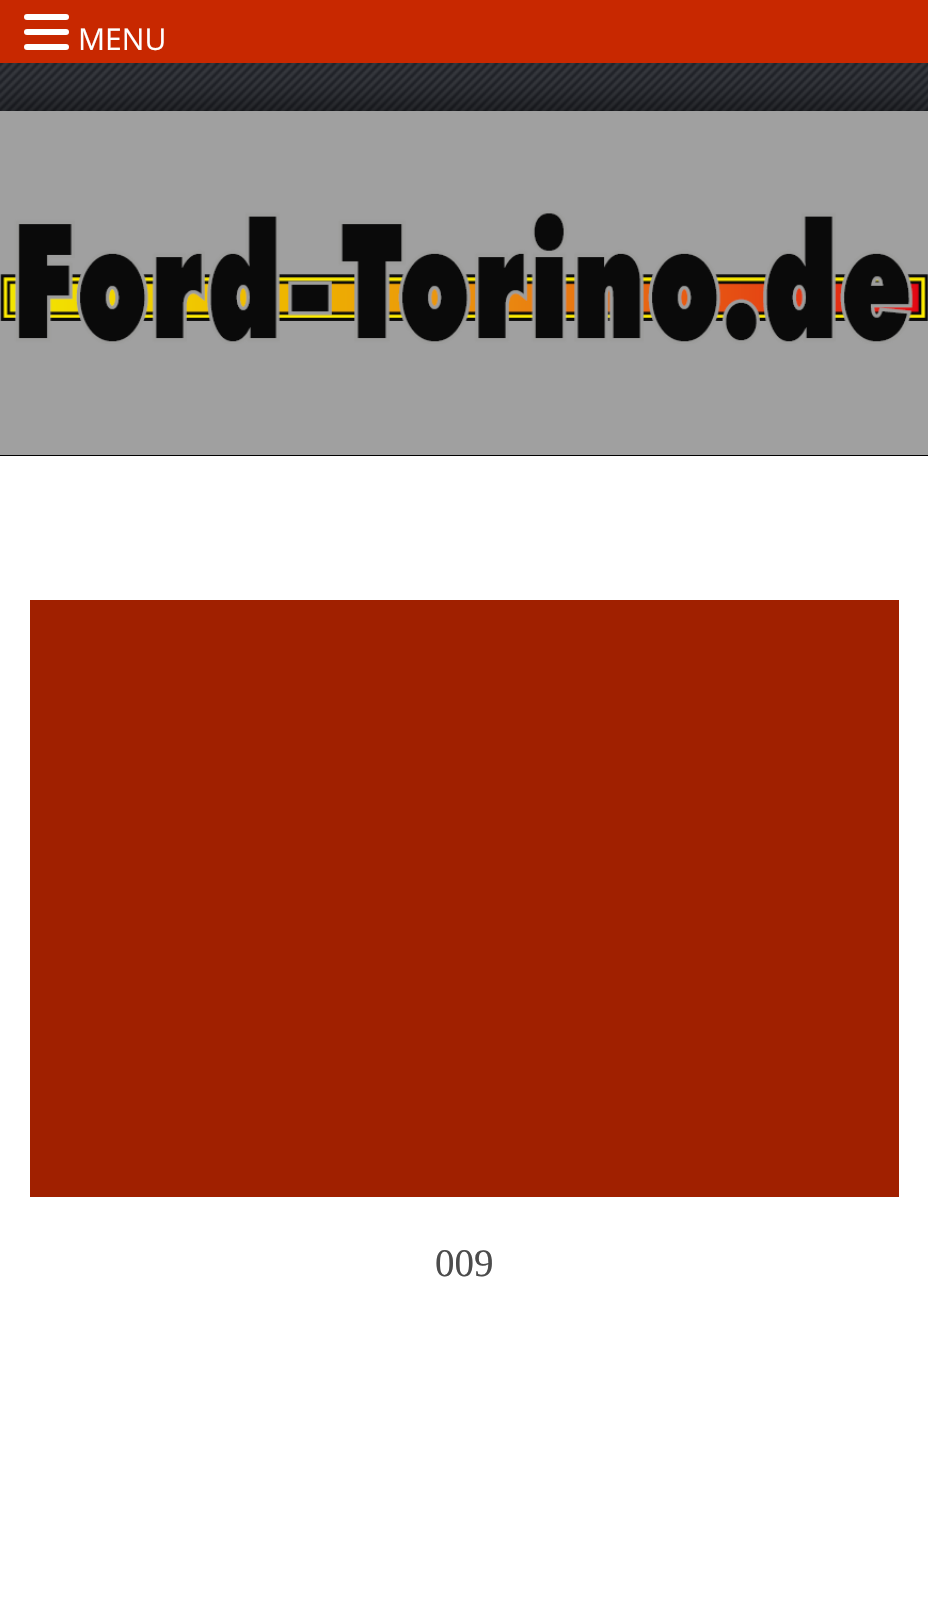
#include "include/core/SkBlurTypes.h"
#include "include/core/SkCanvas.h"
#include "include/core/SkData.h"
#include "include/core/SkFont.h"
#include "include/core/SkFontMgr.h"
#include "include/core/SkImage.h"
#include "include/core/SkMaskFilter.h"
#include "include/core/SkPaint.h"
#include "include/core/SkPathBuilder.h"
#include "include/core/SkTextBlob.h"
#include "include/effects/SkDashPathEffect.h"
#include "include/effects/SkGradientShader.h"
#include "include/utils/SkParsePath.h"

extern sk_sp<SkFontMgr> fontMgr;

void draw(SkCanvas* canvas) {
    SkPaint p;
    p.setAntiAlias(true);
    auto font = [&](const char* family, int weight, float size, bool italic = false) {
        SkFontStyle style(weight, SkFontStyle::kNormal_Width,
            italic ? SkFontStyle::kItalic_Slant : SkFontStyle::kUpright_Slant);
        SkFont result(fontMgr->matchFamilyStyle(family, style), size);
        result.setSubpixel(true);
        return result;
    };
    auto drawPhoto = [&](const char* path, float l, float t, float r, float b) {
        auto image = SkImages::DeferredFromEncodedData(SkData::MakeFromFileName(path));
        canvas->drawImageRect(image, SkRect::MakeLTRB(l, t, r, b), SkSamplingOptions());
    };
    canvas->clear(0xFFFFFFFF);
    drawPhoto("media/1.png", 0, 63, 928, 111);
    p.setColor(0x80000000);
    p.setMaskFilter(SkMaskFilter::MakeBlur(kNormal_SkBlurStyle, 15));
    canvas->drawRect(SkRect::MakeLTRB(-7, 104, 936, 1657), p);
    p.setMaskFilter(nullptr);
    p.setColor(0xFFC82800);
    canvas->drawRect(SkRect::MakeLTRB(0, 0, 928, 63), p);
    p.setColor(0xFFFFFFFF);
    canvas->drawRoundRect(SkRect::MakeLTRB(24, 14, 69, 20), 3, 3, p);
    canvas->drawRoundRect(SkRect::MakeLTRB(24, 29, 69, 35), 3, 3, p);
    canvas->drawRoundRect(SkRect::MakeLTRB(24, 44, 69, 50), 3, 3, p);
    auto font1 = font("Open Sans", 400, 30);
    canvas->drawString("MENU", 78, 50, font1, p);
    p.setColor(0xFFA0A0A0);
    canvas->drawRect(SkRect::MakeLTRB(0, 111, 928, 455), p);
    drawPhoto("media/2.png", 0, 210, 928, 344);
    {
        const struct { float l, t, r, b; SkColor color; } items[] = {
            {0, 455, 928, 456, 0xFF000000},
            {0, 456, 928, 1612, 0xFFFFFFFF},
            {30, 600, 899, 1197, 0xFFA02000},
        };
        for (auto [l, t, r, b, color] : items) {
            p.setColor(color);
            canvas->drawRect(SkRect::MakeLTRB(l, t, r, b), p);
        }
    }
    auto font2 = font("Liberation Serif", 400, 39);
    p.setColor(0xFF4C4C4C);
    canvas->drawString("009", 435, 1276, font2, p);
}
